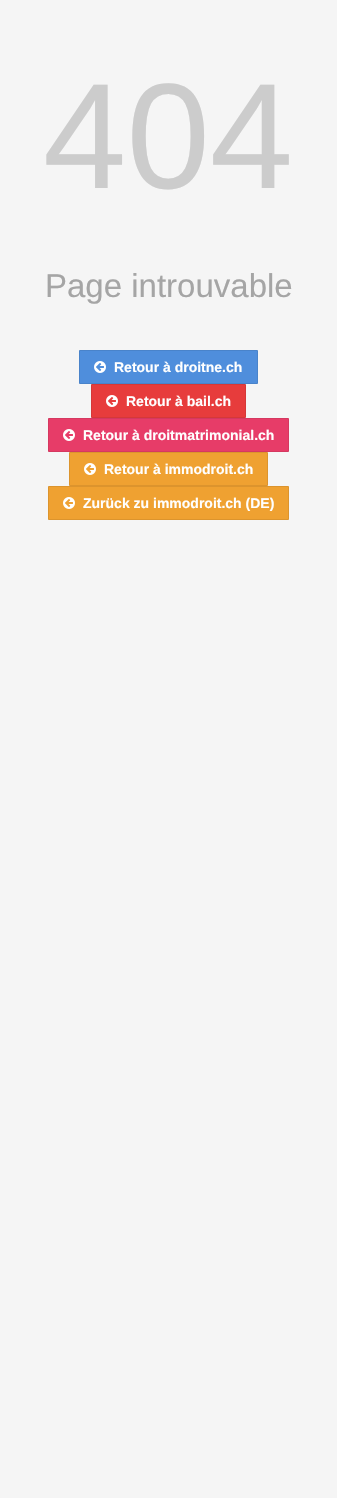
#include "include/core/SkBlurTypes.h"
#include "include/core/SkCanvas.h"
#include "include/core/SkData.h"
#include "include/core/SkFont.h"
#include "include/core/SkFontMgr.h"
#include "include/core/SkImage.h"
#include "include/core/SkMaskFilter.h"
#include "include/core/SkPaint.h"
#include "include/core/SkPathBuilder.h"
#include "include/core/SkTextBlob.h"
#include "include/effects/SkDashPathEffect.h"
#include "include/effects/SkGradientShader.h"
#include "include/utils/SkParsePath.h"

extern sk_sp<SkFontMgr> fontMgr;

void draw(SkCanvas* canvas) {
    SkPaint p;
    p.setAntiAlias(true);
    auto font = [&](const char* family, int weight, float size, bool italic = false) {
        SkFontStyle style(weight, SkFontStyle::kNormal_Width,
            italic ? SkFontStyle::kItalic_Slant : SkFontStyle::kUpright_Slant);
        SkFont result(fontMgr->matchFamilyStyle(family, style), size);
        result.setSubpixel(true);
        return result;
    };
    auto drawPhoto = [&](const char* path, float l, float t, float r, float b) {
        auto image = SkImages::DeferredFromEncodedData(SkData::MakeFromFileName(path));
        canvas->drawImageRect(image, SkRect::MakeLTRB(l, t, r, b), SkSamplingOptions());
    };
    canvas->clear(0xFFF5F5F5);
    auto font1 = font("Liberation Sans", 400, 150);
    p.setColor(0xFFCCCCCC);
    canvas->drawString("404", 43, 188, font1, p);
    auto font2 = font("Liberation Sans", 400, 33);
    p.setColor(0xFFA5A5A5);
    canvas->drawString("Page introuvable", 45, 297, font2, p);
    p.setColor(0xFF4F8EDC);
    canvas->drawRoundRect(SkRect::MakeLTRB(79, 350, 258, 384), 1, 1, p);
    p.setStyle(SkPaint::kStroke_Style);
    p.setStrokeWidth(1);
    p.setColor(0x14000000);
    canvas->drawRect(SkRect::MakeLTRB(79.5f, 350.5f, 257.5f, 383.5f), p);
    drawPhoto("media/1.png", 94, 361, 106, 373);
    auto font3 = font("Liberation Sans", 700, 14);
    p.setStyle(SkPaint::kFill_Style);
    p.setColor(0xFFFFFFFF);
    canvas->drawString("Retour à droitne.ch", 114, 372, font3, p);
    p.setColor(0xFFE73C3C);
    canvas->drawRoundRect(SkRect::MakeLTRB(91, 384, 246, 418), 1, 1, p);
    p.setStyle(SkPaint::kStroke_Style);
    p.setColor(0x14000000);
    canvas->drawRect(SkRect::MakeLTRB(91.5f, 384.5f, 245.5f, 417.5f), p);
    drawPhoto("media/2.png", 106, 395, 118, 407);
    p.setStyle(SkPaint::kFill_Style);
    p.setColor(0xFFFFFFFF);
    canvas->drawString("Retour à bail.ch", 126, 406, font3, p);
    p.setColor(0xFFE73C68);
    canvas->drawRoundRect(SkRect::MakeLTRB(48, 418, 289, 452), 1, 1, p);
    p.setStyle(SkPaint::kStroke_Style);
    p.setColor(0x14000000);
    canvas->drawRect(SkRect::MakeLTRB(48.5f, 418.5f, 288.5f, 451.5f), p);
    drawPhoto("media/3.png", 63, 429, 75, 441);
    p.setStyle(SkPaint::kFill_Style);
    p.setColor(0xFFFFFFFF);
    canvas->drawString("Retour à droitmatrimonial.ch", 83, 440, font3, p);
    p.setColor(0xFFEFA131);
    canvas->drawRoundRect(SkRect::MakeLTRB(69, 452, 268, 486), 1, 1, p);
    p.setStyle(SkPaint::kStroke_Style);
    p.setColor(0x14000000);
    canvas->drawRect(SkRect::MakeLTRB(69.5f, 452.5f, 267.5f, 485.5f), p);
    drawPhoto("media/4.png", 84, 463, 96, 475);
    p.setStyle(SkPaint::kFill_Style);
    p.setColor(0xFFFFFFFF);
    canvas->drawString("Retour à immodroit.ch", 104, 474, font3, p);
    p.setColor(0xFFEFA131);
    canvas->drawRoundRect(SkRect::MakeLTRB(48, 486, 289, 520), 1, 1, p);
    p.setStyle(SkPaint::kStroke_Style);
    p.setColor(0x14000000);
    canvas->drawRect(SkRect::MakeLTRB(48.5f, 486.5f, 288.5f, 519.5f), p);
    drawPhoto("media/4.png", 63, 497, 75, 509);
    p.setStyle(SkPaint::kFill_Style);
    p.setColor(0xFFFFFFFF);
    canvas->drawString("Zurück zu immodroit.ch (DE)", 83, 508, font3, p);
}
